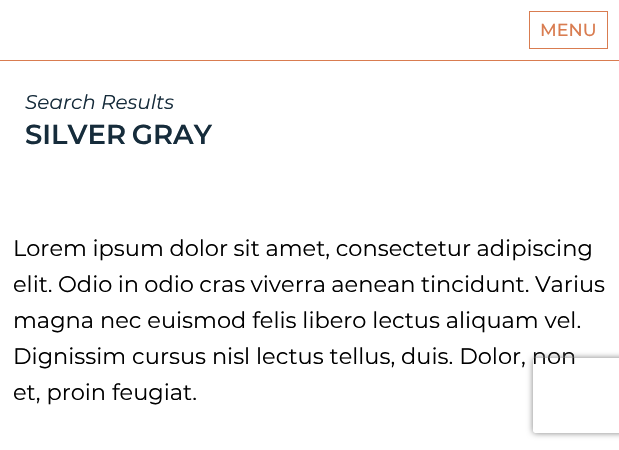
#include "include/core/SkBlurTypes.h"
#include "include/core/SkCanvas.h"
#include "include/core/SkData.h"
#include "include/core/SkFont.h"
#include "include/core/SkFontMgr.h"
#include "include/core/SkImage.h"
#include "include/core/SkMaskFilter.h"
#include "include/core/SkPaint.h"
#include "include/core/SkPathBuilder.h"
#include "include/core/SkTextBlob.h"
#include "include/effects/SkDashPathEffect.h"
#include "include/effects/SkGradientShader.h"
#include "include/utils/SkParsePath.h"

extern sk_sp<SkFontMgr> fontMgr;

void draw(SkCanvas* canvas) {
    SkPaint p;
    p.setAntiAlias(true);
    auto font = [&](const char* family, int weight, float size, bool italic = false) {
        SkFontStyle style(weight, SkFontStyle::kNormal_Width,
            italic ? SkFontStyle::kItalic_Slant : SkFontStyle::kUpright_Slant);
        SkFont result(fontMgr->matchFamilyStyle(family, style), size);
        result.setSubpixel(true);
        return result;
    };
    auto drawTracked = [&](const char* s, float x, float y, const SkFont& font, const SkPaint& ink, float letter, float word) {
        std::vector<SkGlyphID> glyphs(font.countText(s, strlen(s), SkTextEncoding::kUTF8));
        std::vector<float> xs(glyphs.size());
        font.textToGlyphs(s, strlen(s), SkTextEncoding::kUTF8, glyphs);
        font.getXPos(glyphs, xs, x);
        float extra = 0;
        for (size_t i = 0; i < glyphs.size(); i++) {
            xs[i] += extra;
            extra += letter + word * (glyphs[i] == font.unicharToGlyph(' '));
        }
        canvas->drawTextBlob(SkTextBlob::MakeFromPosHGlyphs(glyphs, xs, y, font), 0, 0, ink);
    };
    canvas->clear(0xFFFFFFFF);
    p.setStyle(SkPaint::kStroke_Style);
    p.setStrokeWidth(1);
    p.setColor(0xFFD97C50);
    canvas->drawRect(SkRect::MakeLTRB(529.5f, 11.5f, 607.5f, 48.5f), p);
    auto font1 = font("Montserrat", 500, 17.5f);
    p.setStyle(SkPaint::kFill_Style);
    canvas->drawString("MENU", 540, 36, font1, p);
    canvas->drawRect(SkRect::MakeLTRB(0, 60, 619, 61), p);
    auto font2 = font("Montserrat", 400, 20, true);
    p.setColor(0xFF162C3B);
    canvas->drawString("Search Results", 25, 109, font2, p);
    auto font3 = font("Montserrat", 600, 27.5f);
    drawTracked("SILVER GRAY", 25, 144, font3, p, 0, -2);
    auto font4 = font("Montserrat", 400, 22.5f);
    p.setColor(0xFF000000);
    drawTracked("Lorem ipsum dolor sit amet, consectetur adipiscing", 13, 256, font4, p, 0, -0.25f);
    drawTracked("elit. Odio in odio cras viverra aenean tincidunt. Varius", 13, 292, font4, p, 0, -0.5f);
    {
        const struct { const char* s; float x, y; } items[] = {
            {"magna nec euismod felis libero lectus aliquam vel.", 13, 328},
            {"Dignissim cursus nisl lectus tellus, duis. Dolor, non", 13, 364},
            {"et, proin feugiat.", 13, 400},
        };
        for (auto [s, x, y] : items) {
            canvas->drawString(s, x, y, font4, p);
        }
    }
    canvas->save();
    canvas->clipPath(SkPathBuilder(SkPathFillType::kEvenOdd).moveTo(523, 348).lineTo(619, 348).lineTo(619, 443).lineTo(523, 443).close().moveTo(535.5f, 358).lineTo(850.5f, 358).cubicTo(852, 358, 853, 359, 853, 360.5f).lineTo(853, 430.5f).cubicTo(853, 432, 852, 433, 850.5f, 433).lineTo(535.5f, 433).cubicTo(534, 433, 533, 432, 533, 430.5f).lineTo(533, 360.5f).cubicTo(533, 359, 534, 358, 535.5f, 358).close().detach(), true);
    p.setColor(0xFF808080);
    p.setMaskFilter(SkMaskFilter::MakeBlur(kNormal_SkBlurStyle, 3));
    canvas->drawRoundRect(SkRect::MakeLTRB(533, 358, 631, 433), 2.5f, 2.5f, p);
    p.setMaskFilter(nullptr);
    canvas->restore();
}
